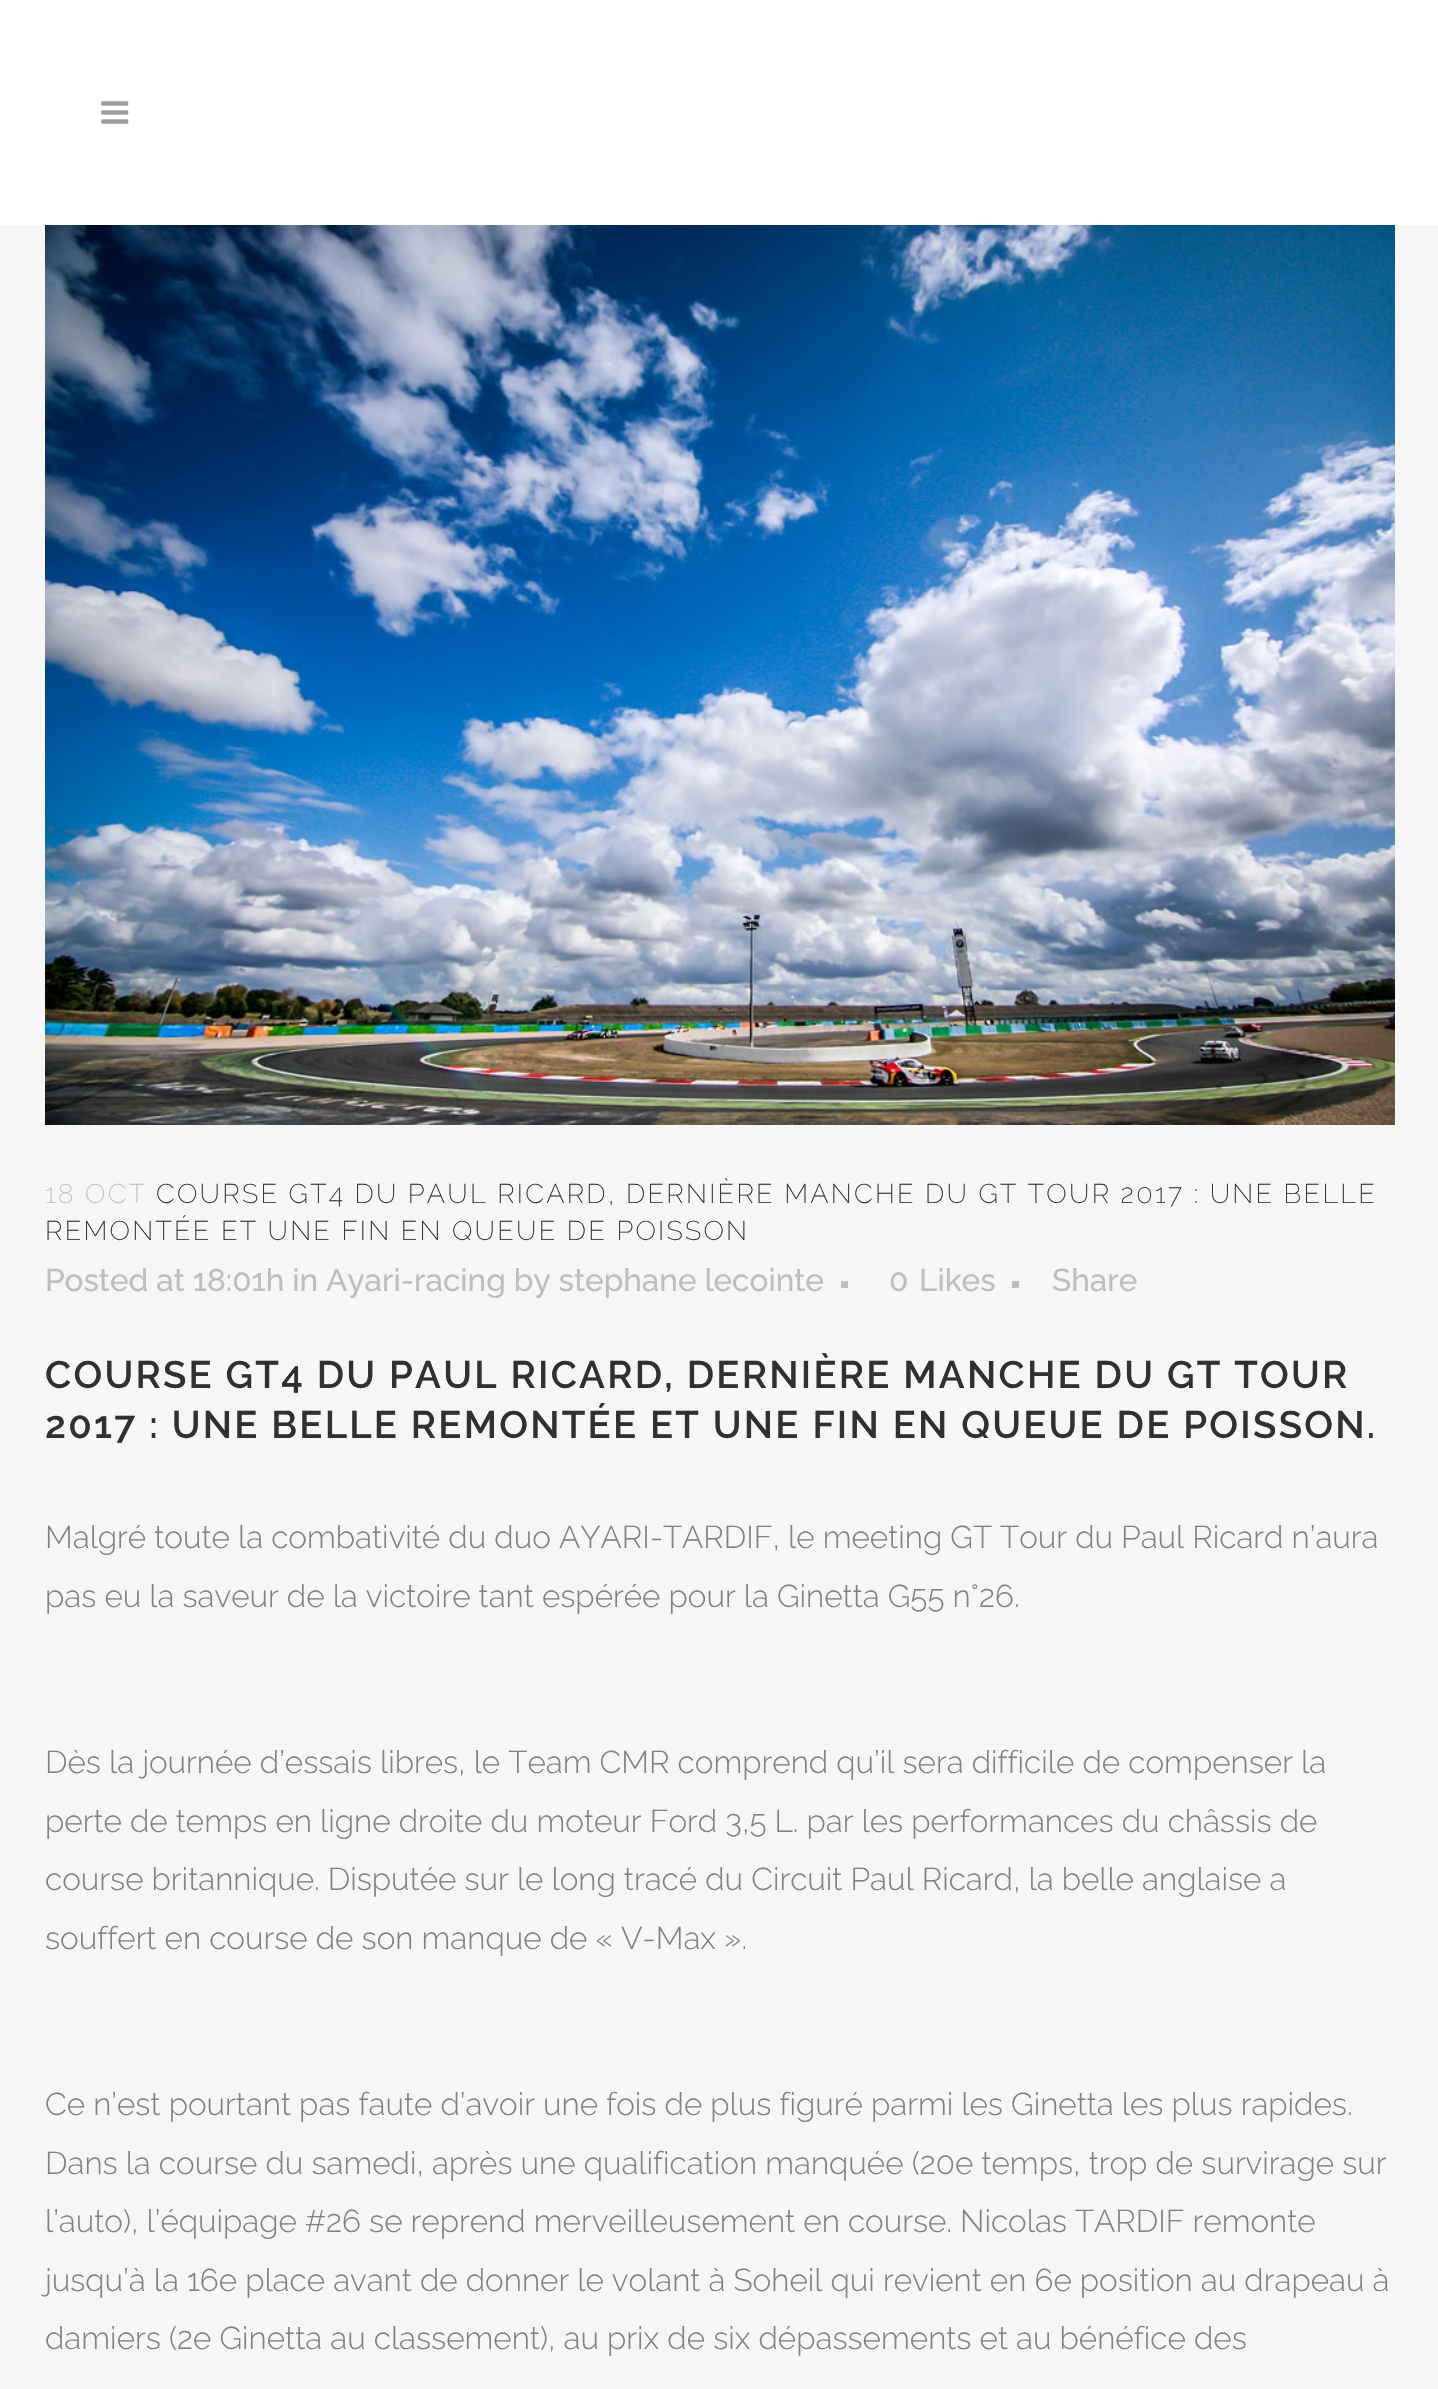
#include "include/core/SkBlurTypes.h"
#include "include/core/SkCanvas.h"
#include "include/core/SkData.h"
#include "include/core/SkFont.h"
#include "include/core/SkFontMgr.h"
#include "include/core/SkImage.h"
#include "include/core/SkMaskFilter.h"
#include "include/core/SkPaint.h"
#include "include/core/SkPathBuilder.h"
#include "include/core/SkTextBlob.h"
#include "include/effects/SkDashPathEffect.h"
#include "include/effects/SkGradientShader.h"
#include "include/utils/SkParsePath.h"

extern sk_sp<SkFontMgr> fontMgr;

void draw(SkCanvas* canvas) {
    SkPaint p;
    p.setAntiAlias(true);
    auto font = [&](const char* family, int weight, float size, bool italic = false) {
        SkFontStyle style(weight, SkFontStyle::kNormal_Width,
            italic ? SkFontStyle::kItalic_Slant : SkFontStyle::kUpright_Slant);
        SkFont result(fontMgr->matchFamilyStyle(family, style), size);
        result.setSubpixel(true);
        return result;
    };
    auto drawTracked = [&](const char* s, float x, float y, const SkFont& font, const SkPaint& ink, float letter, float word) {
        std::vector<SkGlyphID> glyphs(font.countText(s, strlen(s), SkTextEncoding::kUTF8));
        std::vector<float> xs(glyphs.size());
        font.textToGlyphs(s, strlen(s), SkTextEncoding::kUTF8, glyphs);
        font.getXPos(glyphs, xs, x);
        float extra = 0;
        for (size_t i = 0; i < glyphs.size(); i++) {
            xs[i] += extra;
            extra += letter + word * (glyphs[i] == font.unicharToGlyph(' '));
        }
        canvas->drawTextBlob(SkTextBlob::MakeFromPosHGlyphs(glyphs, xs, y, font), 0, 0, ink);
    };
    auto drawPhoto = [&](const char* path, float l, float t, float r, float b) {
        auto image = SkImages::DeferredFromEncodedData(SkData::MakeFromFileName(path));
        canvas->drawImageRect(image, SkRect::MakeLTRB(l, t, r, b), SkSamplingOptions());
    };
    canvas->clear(0xFFF6F6F6);
    p.setColor(0xFFFFFFFF);
    canvas->drawRect(SkRect::MakeLTRB(0, 0, 1438, 225), p);
    drawPhoto("media/1.png", 101, 101, 129, 124);
    drawPhoto("media/2.png", 45, 225, 1395, 1125);
    auto font1 = font("Raleway", 200, 27);
    p.setColor(0xFFBEBEBE);
    drawTracked("18 OCT", 45, 1203, font1, p, 2.25f, 0);
    p.setColor(0xFF303030);
    drawTracked("COURSE GT4 DU PAUL RICARD, DERNIÈRE MANCHE DU GT TOUR 2017 : UNE BELLE", 156, 1203, font1, p, 2.25f, 0);
    drawTracked("REMONTÉE ET UNE FIN EN QUEUE DE POISSON", 45, 1240, font1, p, 2.25f, 0);
    auto font2 = font("Raleway", 500, 31.5f);
    p.setColor(0xFFBEBEBE);
    canvas->drawString("Posted at 18:01h in Ayari-racing by stephane lecointe", 45, 1291, font2, p);
    canvas->drawRect(SkRect::MakeLTRB(841, 1281, 848, 1288), p);
    canvas->drawString("0", 889, 1291, font2, p);
    canvas->drawString("Likes", 919, 1291, font2, p);
    canvas->drawRect(SkRect::MakeLTRB(1012, 1281, 1019, 1288), p);
    canvas->drawString("Share", 1052, 1291, font2, p);
    auto font3 = font("Raleway", 600, 38.25f);
    p.setColor(0xFF303030);
    drawTracked("COURSE GT4 DU PAUL RICARD, DERNIÈRE MANCHE DU GT TOUR", 45, 1388, font3, p, 2.25f, 0);
    drawTracked("2017 : UNE BELLE REMONTÉE ET UNE FIN EN QUEUE DE POISSON.", 45, 1438, font3, p, 2.25f, 0);
    auto font4 = font("Raleway", 300, 31.5f);
    p.setColor(0xFF818181);
    {
        const struct { const char* s; float x, y; } items[] = {
            {"Malgré toute la combativité du duo AYARI-TARDIF, le meeting GT Tour du Paul Ricard n’aura", 45, 1548},
            {"pas eu la saveur de la victoire tant espérée pour la Ginetta G55 n°26.", 45, 1607},
            {"Dès la journée d’essais libres, le Team CMR comprend qu’il sera difficile de compenser la", 45, 1773},
            {"perte de temps en ligne droite du moteur Ford 3,5 L. par les performances du châssis de", 45, 1832},
            {"course britannique. Disputée sur le long tracé du Circuit Paul Ricard, la belle anglaise a", 45, 1890},
            {"souffert en course de son manque de « V-Max ».", 45, 1949},
            {"Ce n’est pourtant pas faute d’avoir une fois de plus figuré parmi les Ginetta les plus rapides.", 45, 2115},
            {"Dans la course du samedi, après une qualification manquée (20e temps, trop de survirage sur", 45, 2174},
            {"l’auto), l’équipage #26 se reprend merveilleusement en course. Nicolas TARDIF remonte", 45, 2232},
            {"jusqu’à la 16e place avant de donner le volant à Soheil qui revient en 6e position au drapeau à", 45, 2291},
            {"damiers (2e Ginetta au classement), au prix de six dépassements et au bénéfice des", 45, 2349},
        };
        for (auto [s, x, y] : items) {
            canvas->drawString(s, x, y, font4, p);
        }
    }
}
